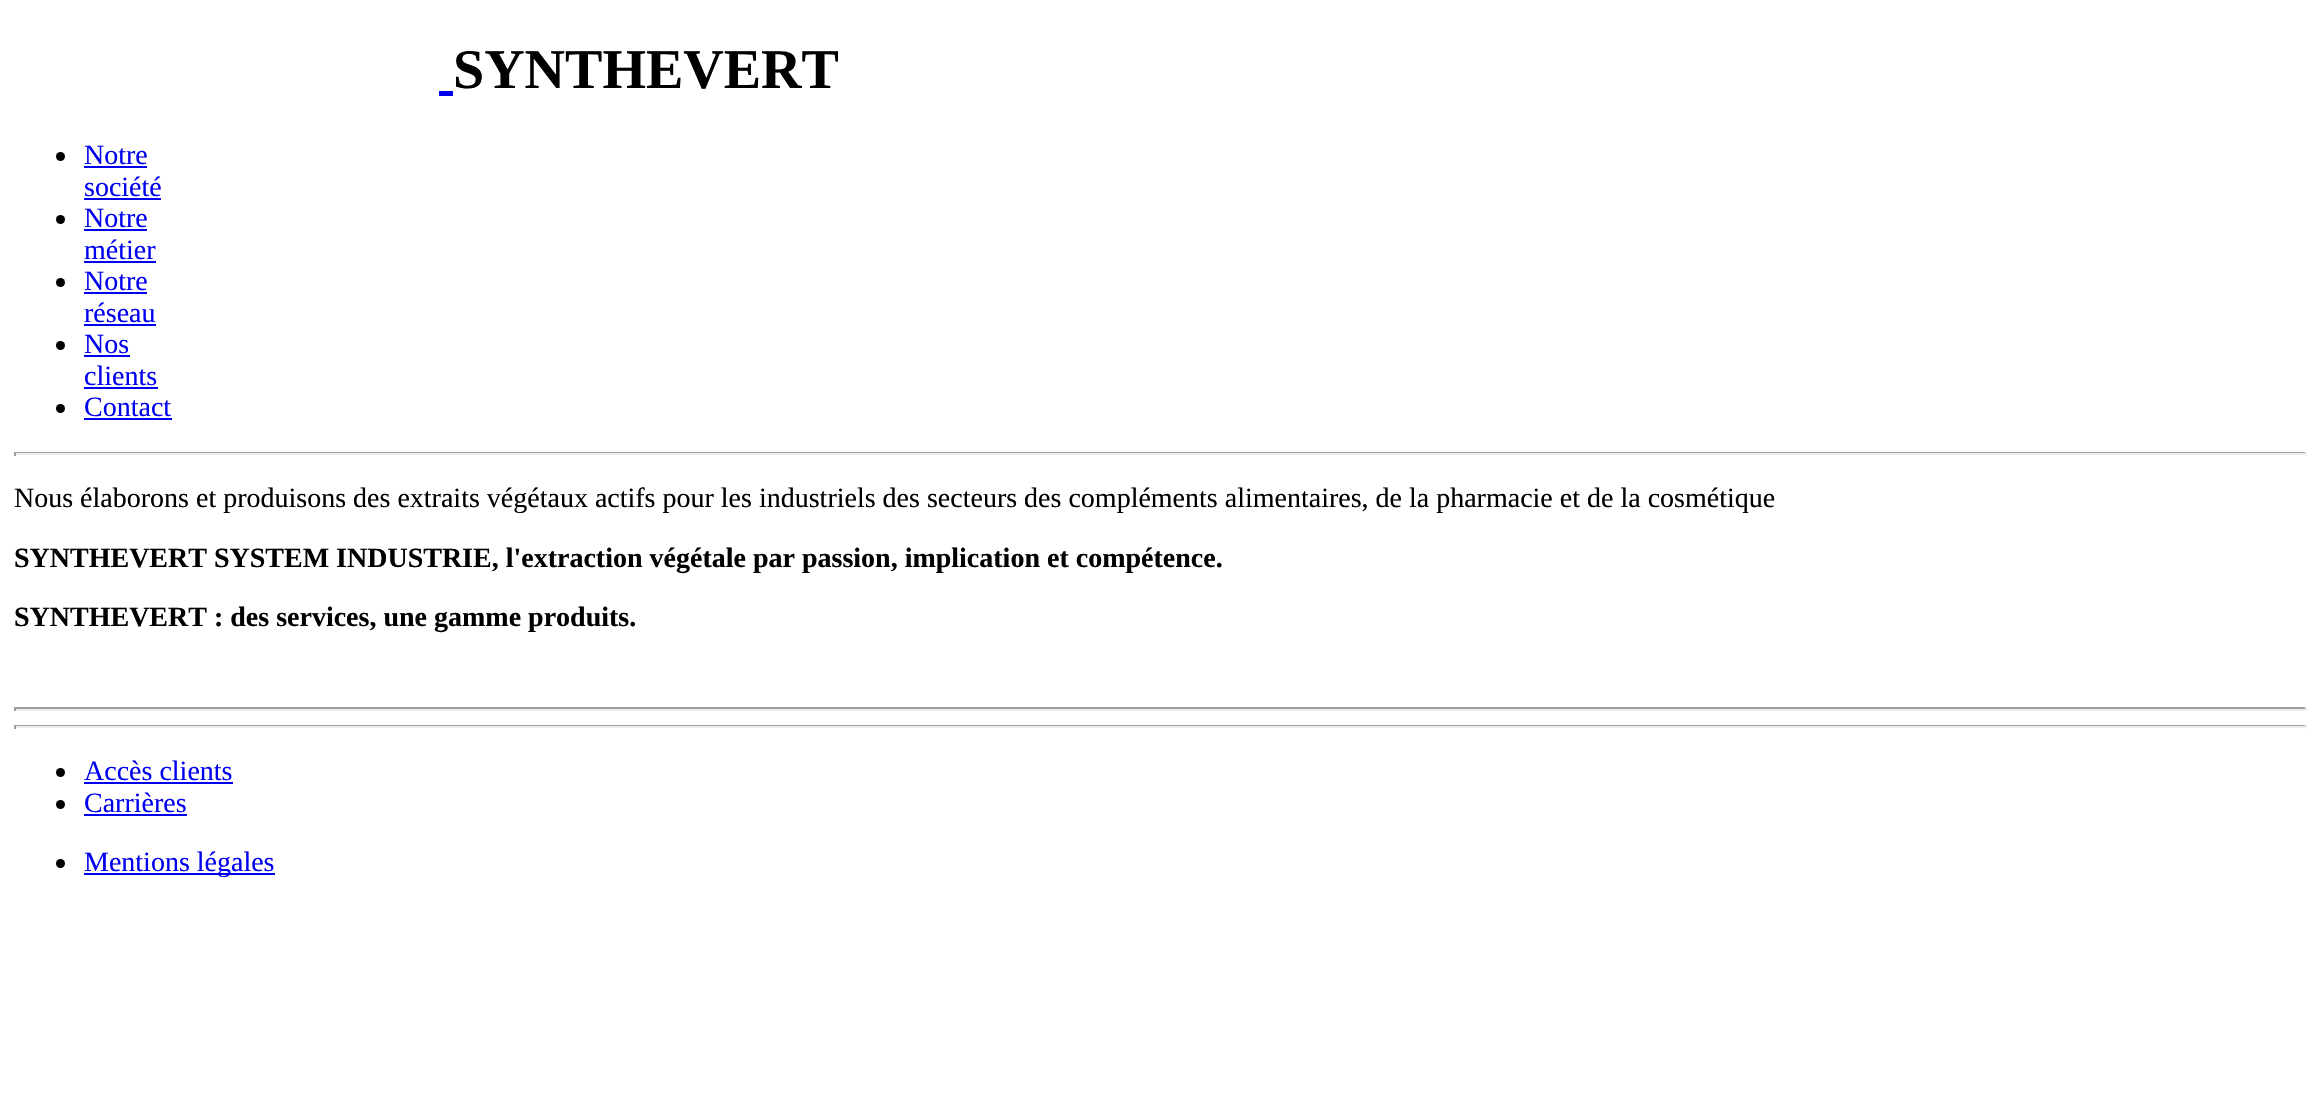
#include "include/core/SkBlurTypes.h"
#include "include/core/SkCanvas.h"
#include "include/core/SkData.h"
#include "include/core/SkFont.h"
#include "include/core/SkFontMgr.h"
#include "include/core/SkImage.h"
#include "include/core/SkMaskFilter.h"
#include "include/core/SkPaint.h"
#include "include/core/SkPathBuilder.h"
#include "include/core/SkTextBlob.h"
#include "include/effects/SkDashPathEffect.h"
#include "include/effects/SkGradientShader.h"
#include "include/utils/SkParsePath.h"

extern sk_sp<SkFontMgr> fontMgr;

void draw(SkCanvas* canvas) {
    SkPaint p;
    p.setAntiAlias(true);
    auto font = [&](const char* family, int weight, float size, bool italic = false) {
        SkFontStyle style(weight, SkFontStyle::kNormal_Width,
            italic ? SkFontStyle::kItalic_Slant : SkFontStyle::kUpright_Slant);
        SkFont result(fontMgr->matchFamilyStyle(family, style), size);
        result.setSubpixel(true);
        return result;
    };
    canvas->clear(0xFFFFFFFF);
    auto font1 = font("Liberation Serif", 700, 56);
    p.setColor(0xFF000000);
    canvas->drawString("SYNTHEVERT", 453, 88, font1, p);
    p.setColor(0xFF0000EE);
    canvas->drawRect(SkRect::MakeLTRB(439, 91, 453, 96), p);
    p.setColor(0xFF000000);
    canvas->drawCircle(60.5f, 156.5f, 4.5f, p);
    auto font2 = font("Liberation Serif", 400, 28);
    p.setColor(0xFF0000EE);
    canvas->drawString("Notre", 84, 164, font2, p);
    canvas->drawRect(SkRect::MakeLTRB(84, 166, 147, 168), p);
    canvas->drawString("société", 84, 196, font2, p);
    canvas->drawRect(SkRect::MakeLTRB(84, 198, 161, 200), p);
    p.setColor(0xFF000000);
    canvas->drawCircle(60.5f, 219.5f, 4.5f, p);
    p.setColor(0xFF0000EE);
    canvas->drawString("Notre", 84, 227, font2, p);
    canvas->drawRect(SkRect::MakeLTRB(84, 229, 147, 231), p);
    canvas->drawString("métier", 84, 259, font2, p);
    canvas->drawRect(SkRect::MakeLTRB(84, 261, 156, 263), p);
    p.setColor(0xFF000000);
    canvas->drawCircle(60.5f, 282.5f, 4.5f, p);
    p.setColor(0xFF0000EE);
    canvas->drawString("Notre", 84, 290, font2, p);
    canvas->drawRect(SkRect::MakeLTRB(84, 292, 147, 294), p);
    canvas->drawString("réseau", 84, 322, font2, p);
    canvas->drawRect(SkRect::MakeLTRB(84, 324, 156, 326), p);
    p.setColor(0xFF000000);
    canvas->drawCircle(60.5f, 345.5f, 4.5f, p);
    p.setColor(0xFF0000EE);
    canvas->drawString("Nos", 84, 353, font2, p);
    canvas->drawRect(SkRect::MakeLTRB(84, 355, 130, 357), p);
    canvas->drawString("clients", 84, 385, font2, p);
    canvas->drawRect(SkRect::MakeLTRB(84, 387, 158, 389), p);
    p.setColor(0xFF000000);
    canvas->drawCircle(60.5f, 408.5f, 4.5f, p);
    p.setColor(0xFF0000EE);
    canvas->drawString("Contact", 84, 416, font2, p);
    {
        const struct { float l, t, r, b; SkColor color; } items[] = {
            {84, 418, 172, 420, 0xFF0000EE},
            {14, 452, 2307, 453, 0xFF9F9F9F},
            {2305, 452, 2307, 456, 0xFFEEEEEE},
            {14, 453, 2307, 455, 0xFFEEEEEE},
            {14, 452, 16, 456, 0xFF9F9F9F},
        };
        for (auto [l, t, r, b, color] : items) {
            p.setColor(color);
            canvas->drawRect(SkRect::MakeLTRB(l, t, r, b), p);
        }
    }
    p.setColor(0xFF000000);
    canvas->drawString("Nous élaborons et produisons des extraits végétaux actifs pour les industriels des secteurs des compléments alimentaires, de la pharmacie et de la cosmétique", 14, 507, font2, p);
    auto font3 = font("Liberation Serif", 700, 28);
    canvas->drawString("SYNTHEVERT SYSTEM INDUSTRIE, l'extraction végétale par passion, implication et compétence.", 14, 567, font3, p);
    canvas->drawString("SYNTHEVERT : des services, une gamme produits.", 14, 626, font3, p);
    {
        const struct { float l, t, r, b; SkColor color; } items[] = {
            {14, 707, 2307, 709, 0xFF9F9F9F},
            {2305, 707, 2307, 711, 0xFFEEEEEE},
            {14, 709, 2307, 711, 0xFFEEEEEE},
            {14, 707, 16, 711, 0xFF9F9F9F},
            {14, 725, 2307, 726, 0xFF9F9F9F},
            {2305, 725, 2307, 729, 0xFFEEEEEE},
            {14, 726, 2307, 728, 0xFFEEEEEE},
            {14, 725, 16, 729, 0xFF9F9F9F},
        };
        for (auto [l, t, r, b, color] : items) {
            p.setColor(color);
            canvas->drawRect(SkRect::MakeLTRB(l, t, r, b), p);
        }
    }
    p.setColor(0xFF000000);
    canvas->drawCircle(60.5f, 772.5f, 4.5f, p);
    p.setColor(0xFF0000EE);
    canvas->drawString("Accès clients", 84, 780, font2, p);
    canvas->drawRect(SkRect::MakeLTRB(84, 782, 233, 784), p);
    p.setColor(0xFF000000);
    canvas->drawCircle(60.5f, 804.5f, 4.5f, p);
    p.setColor(0xFF0000EE);
    canvas->drawString("Carrières", 84, 812, font2, p);
    canvas->drawRect(SkRect::MakeLTRB(84, 814, 187, 816), p);
    p.setColor(0xFF000000);
    canvas->drawCircle(60.5f, 863.5f, 4.5f, p);
    p.setColor(0xFF0000EE);
    canvas->drawRect(SkRect::MakeLTRB(84, 873, 275, 875), p);
    canvas->drawString("Mentions légales", 84, 871, font2, p);
}
